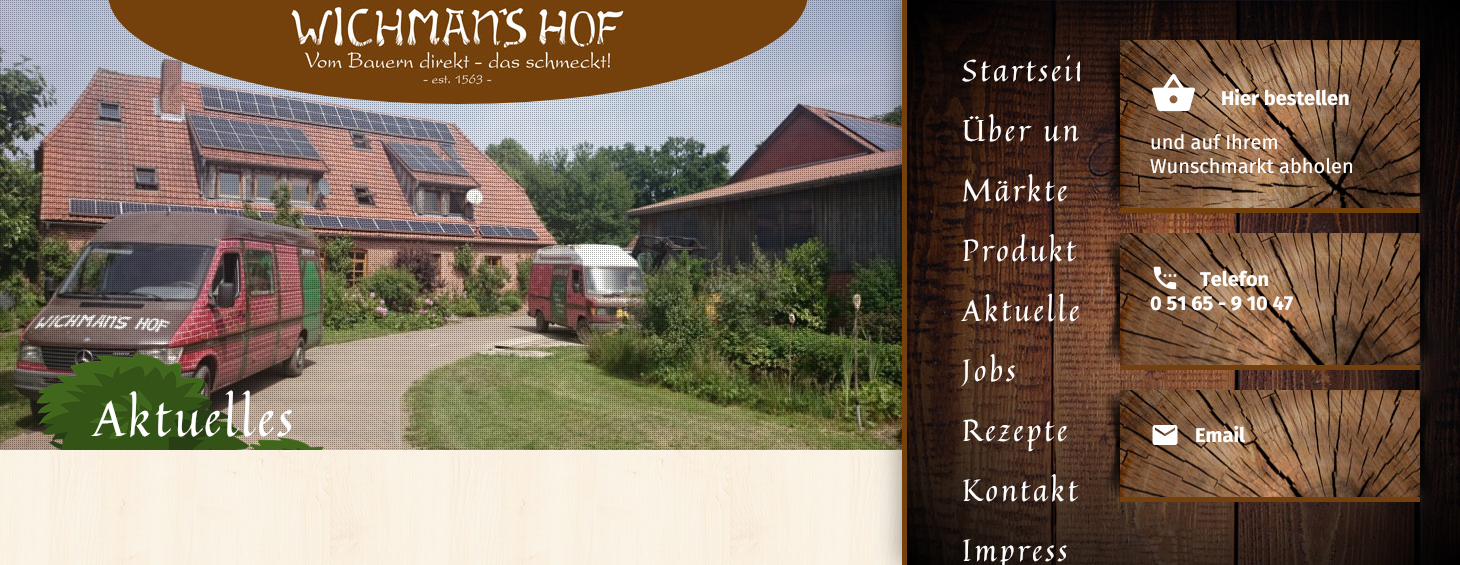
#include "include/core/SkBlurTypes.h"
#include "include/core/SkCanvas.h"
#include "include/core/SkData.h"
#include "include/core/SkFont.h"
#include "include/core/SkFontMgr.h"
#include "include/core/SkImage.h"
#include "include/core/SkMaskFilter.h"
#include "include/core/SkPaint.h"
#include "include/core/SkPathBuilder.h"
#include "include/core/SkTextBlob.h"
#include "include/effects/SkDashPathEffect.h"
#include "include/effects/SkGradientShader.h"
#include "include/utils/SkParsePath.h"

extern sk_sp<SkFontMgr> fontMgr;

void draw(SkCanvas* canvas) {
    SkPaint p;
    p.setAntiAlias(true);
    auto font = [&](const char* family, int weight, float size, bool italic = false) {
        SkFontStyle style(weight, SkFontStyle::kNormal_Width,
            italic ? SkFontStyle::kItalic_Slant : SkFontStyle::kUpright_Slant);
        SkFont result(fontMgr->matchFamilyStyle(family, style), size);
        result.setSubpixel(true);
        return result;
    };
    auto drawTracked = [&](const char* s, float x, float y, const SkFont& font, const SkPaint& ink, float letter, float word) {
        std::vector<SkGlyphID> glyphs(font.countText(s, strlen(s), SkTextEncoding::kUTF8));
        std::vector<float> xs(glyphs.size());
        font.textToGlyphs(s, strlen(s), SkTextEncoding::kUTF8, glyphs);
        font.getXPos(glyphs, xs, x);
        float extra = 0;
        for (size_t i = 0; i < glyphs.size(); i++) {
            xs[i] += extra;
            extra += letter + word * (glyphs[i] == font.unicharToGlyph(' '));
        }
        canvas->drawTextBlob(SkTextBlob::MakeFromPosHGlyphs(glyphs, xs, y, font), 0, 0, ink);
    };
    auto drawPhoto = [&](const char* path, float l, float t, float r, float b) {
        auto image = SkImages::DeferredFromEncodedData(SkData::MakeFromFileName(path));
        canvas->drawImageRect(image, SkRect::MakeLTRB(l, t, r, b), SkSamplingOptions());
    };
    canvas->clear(0xFFFFFFFF);
    drawPhoto("media/1.png", 0, 450, 902, 565);
    drawPhoto("media/13.png", 0, 0, 902, 450);
    drawPhoto("media/14.png", 0, 0, 901, 449);
    p.setColor(0xFF74410C);
    canvas->drawOval(SkRect::MakeLTRB(108, -116, 808, 104), p);
    drawPhoto("media/2.png", 291, 0, 627, 88);
    p.setColor(0x4D000000);
    p.setMaskFilter(SkMaskFilter::MakeBlur(kNormal_SkBlurStyle, 10));
    canvas->drawRect(SkRect::MakeLTRB(897, 0, 1455, 565), p);
    p.setMaskFilter(nullptr);
    drawPhoto("media/3.png", 907, 0, 1460, 565);
    p.setColor(0xFF74410C);
    canvas->drawRect(SkRect::MakeLTRB(902, 0, 907, 565), p);
    canvas->save();
    canvas->clipRect(SkRect::MakeLTRB(907, 0, 1080, 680));
    auto font1 = font("Quintessential", 400, 30);
    p.setColor(0xFFFFFFFF);
    drawTracked("Startseit", 962, 81, font1, p, 3, 0);
    canvas->restore();
    {
        const struct { const char* s; float x, y; } items[] = {
            {"Über un", 962, 141},
            {"Märkte", 962, 201},
            {"Produkt", 962, 261},
            {"Aktuelle", 962, 321},
            {"Jobs", 962, 381},
            {"Rezepte", 962, 441},
            {"Kontakt", 962, 501},
            {"Impress", 962, 561},
        };
        for (auto [s, x, y] : items) {
            drawTracked(s, x, y, font1, p, 3, 0);
        }
    }
    drawPhoto("media/5.png", 1102, 46, 1433, 207);
    drawPhoto("media/4.png", 1120, 40, 1420, 208);
    p.setColor(0xFF74410C);
    canvas->drawRect(SkRect::MakeLTRB(1120, 208, 1420, 213), p);
    drawPhoto("media/6.png", 1151, 74, 1196, 112);
    auto font2 = font("Fira Sans", 700, 20);
    p.setColor(0xFFFFFFFF);
    canvas->drawString("Hier bestellen", 1221, 105, font2, p);
    auto font3 = font("Fira Sans", 400, 20);
    canvas->drawString("und auf Ihrem", 1150, 149, font3, p);
    canvas->drawString("Wunschmarkt abholen", 1150, 173, font3, p);
    drawPhoto("media/8.png", 1102, 234, 1433, 364);
    drawPhoto("media/7.png", 1120, 233, 1420, 365);
    p.setColor(0xFF74410C);
    canvas->drawRect(SkRect::MakeLTRB(1120, 365, 1420, 370), p);
    drawPhoto("media/9.png", 1153, 266, 1177, 290);
    p.setColor(0xFFFFFFFF);
    canvas->drawString("Telefon", 1200, 286, font2, p);
    canvas->drawString("0 51 65 - 9 10 47", 1150, 310, font2, p);
    drawPhoto("media/11.png", 1102, 391, 1433, 496);
    drawPhoto("media/10.png", 1120, 390, 1420, 497);
    p.setColor(0xFF74410C);
    canvas->drawRect(SkRect::MakeLTRB(1120, 497, 1420, 502), p);
    drawPhoto("media/12.png", 1152, 425, 1178, 445);
    p.setColor(0xFFFFFFFF);
    canvas->drawString("Email", 1195, 442, font2, p);
    drawPhoto("media/15.png", 36, 353, 324, 450);
    auto font4 = font("Quintessential", 400, 50);
    drawTracked("Aktuelles", 93, 436, font4, p, 3, 0);
}
